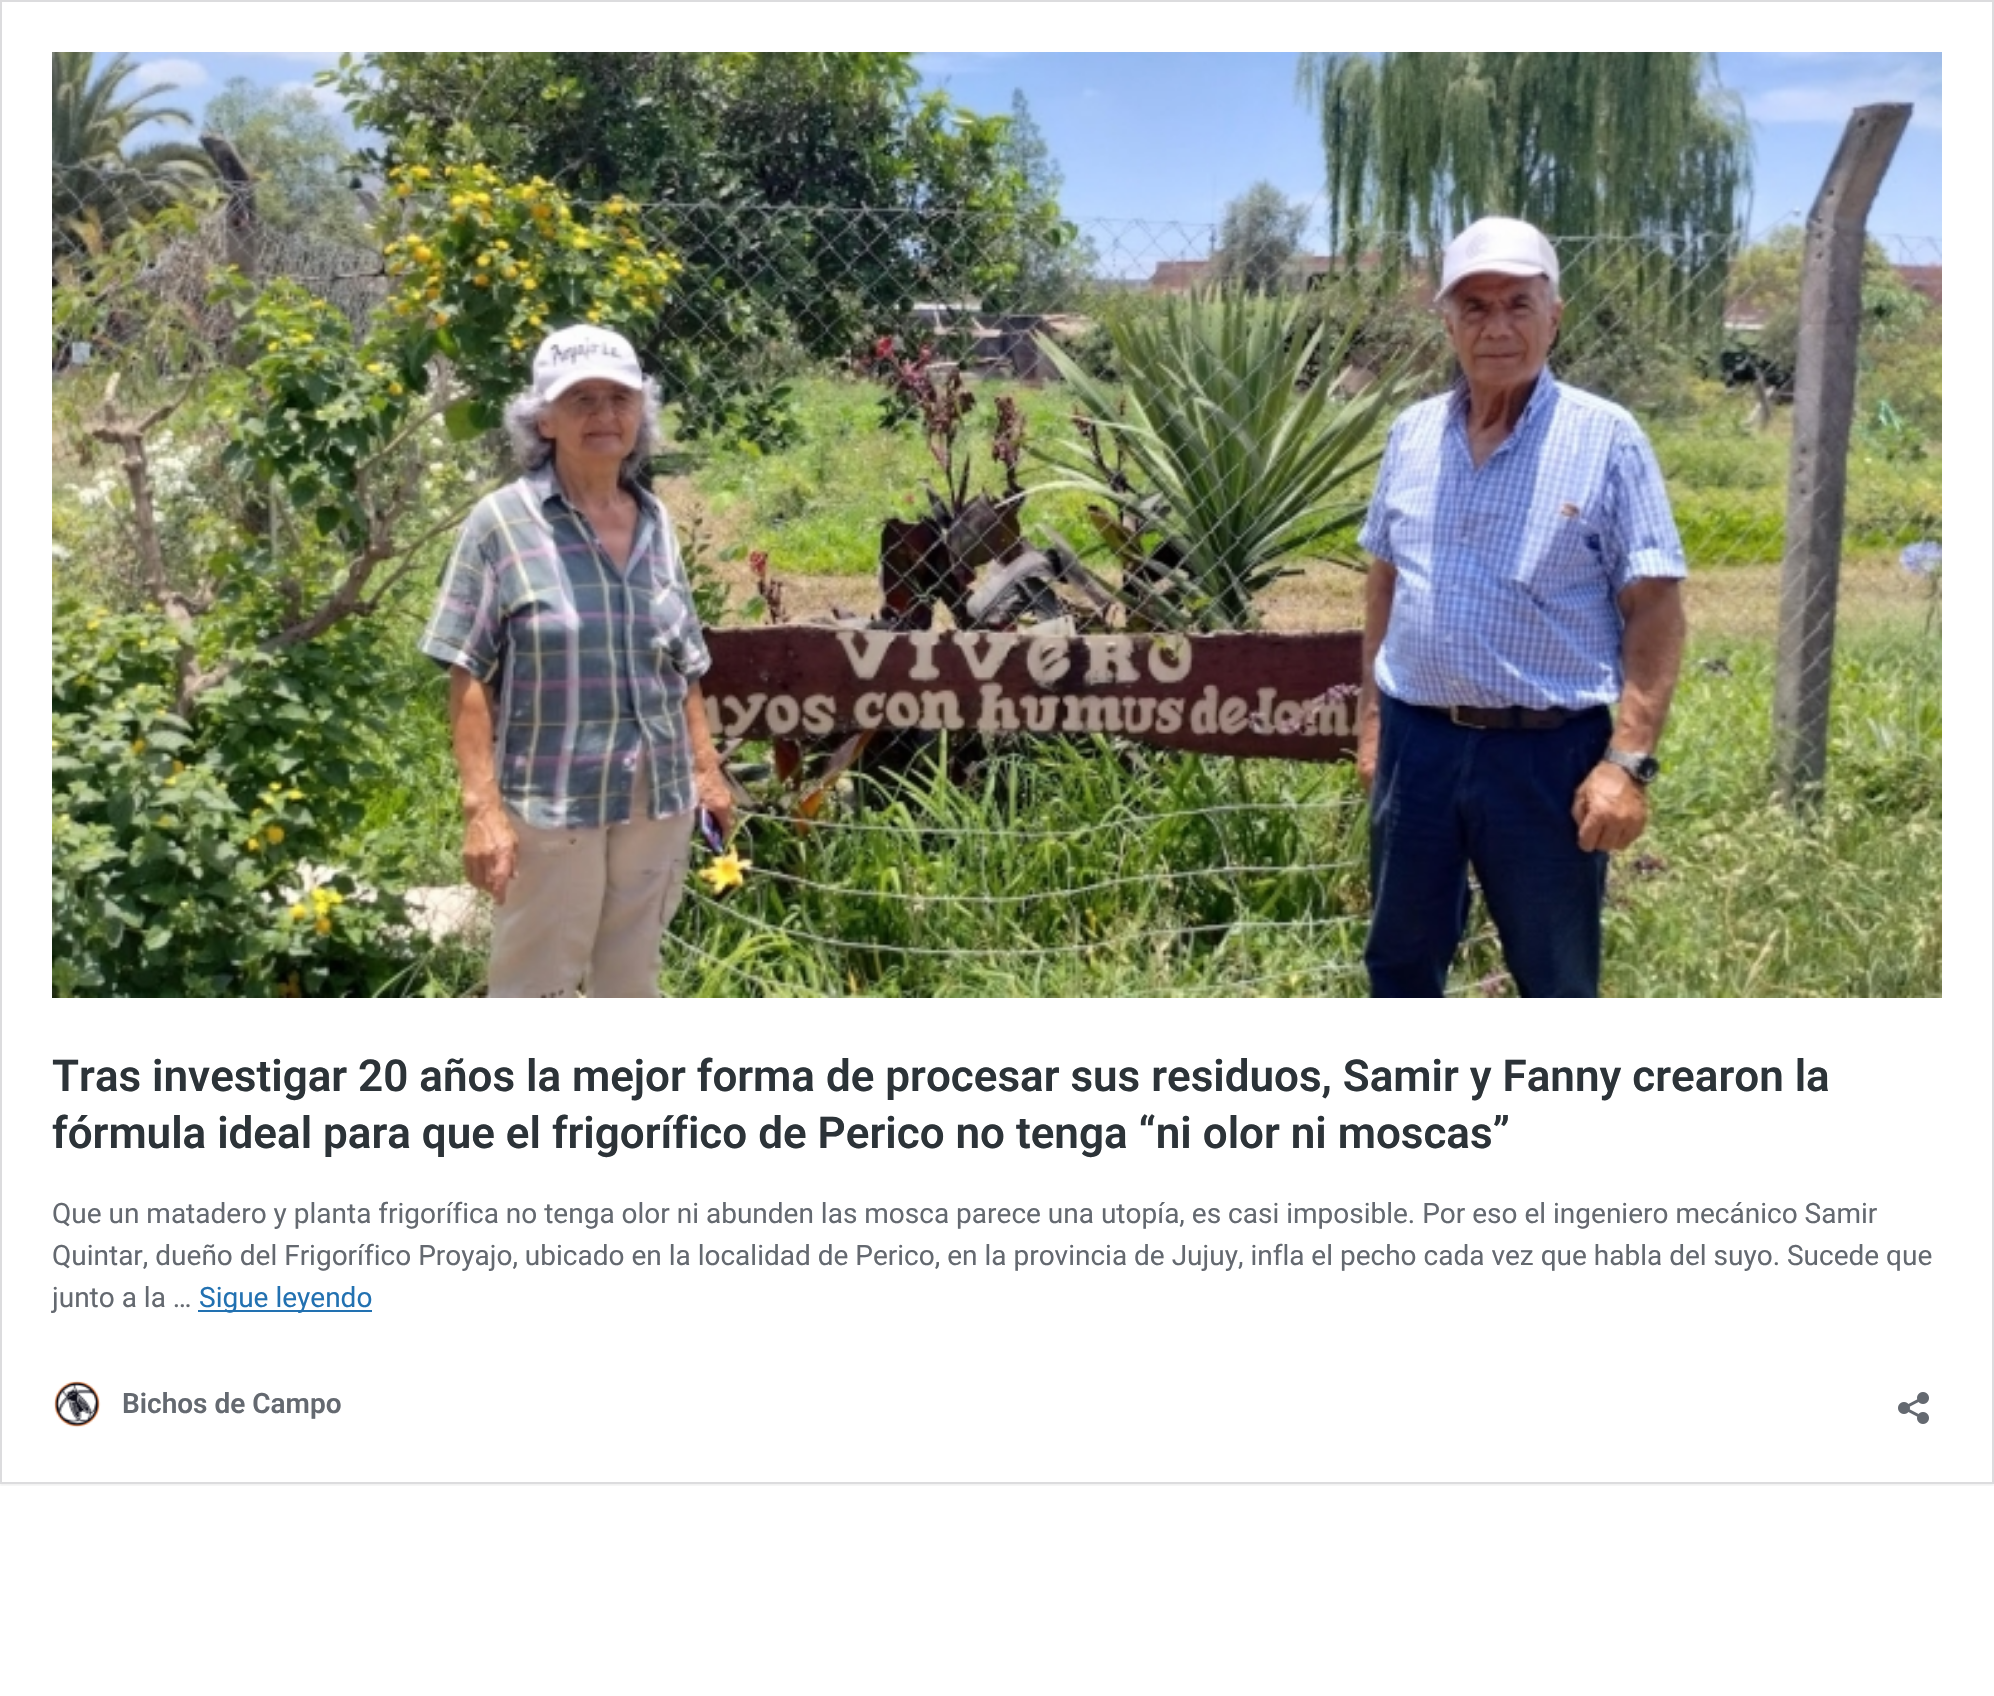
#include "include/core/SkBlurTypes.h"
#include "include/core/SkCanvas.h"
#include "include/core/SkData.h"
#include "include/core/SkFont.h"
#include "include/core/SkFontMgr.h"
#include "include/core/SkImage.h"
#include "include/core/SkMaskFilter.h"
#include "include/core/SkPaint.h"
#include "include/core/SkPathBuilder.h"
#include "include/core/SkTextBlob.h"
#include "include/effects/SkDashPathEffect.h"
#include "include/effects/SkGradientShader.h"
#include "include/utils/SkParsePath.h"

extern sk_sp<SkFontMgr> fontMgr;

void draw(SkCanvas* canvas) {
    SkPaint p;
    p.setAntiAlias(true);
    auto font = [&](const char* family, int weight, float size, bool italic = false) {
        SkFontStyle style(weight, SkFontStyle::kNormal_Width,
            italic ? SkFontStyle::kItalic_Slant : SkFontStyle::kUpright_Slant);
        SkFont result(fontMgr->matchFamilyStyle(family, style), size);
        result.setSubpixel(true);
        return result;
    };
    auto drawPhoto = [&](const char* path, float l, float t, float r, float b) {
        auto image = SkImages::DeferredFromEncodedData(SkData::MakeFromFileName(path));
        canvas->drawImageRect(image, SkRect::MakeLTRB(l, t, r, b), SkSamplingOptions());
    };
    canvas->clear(0xFFFFFFFF);
    canvas->save();
    canvas->clipRect(SkRect::MakeLTRB(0, 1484, 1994, 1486));
    p.setColor(0x0D000000);
    p.setMaskFilter(SkMaskFilter::MakeBlur(kNormal_SkBlurStyle, 1));
    canvas->drawRect(SkRect::MakeLTRB(0, 2, 1994, 1486), p);
    p.setMaskFilter(nullptr);
    canvas->restore();
    p.setStyle(SkPaint::kStroke_Style);
    p.setStrokeWidth(2);
    p.setColor(0xFFDCDCDE);
    canvas->drawRect(SkRect::MakeLTRB(1, 1, 1993, 1483), p);
    drawPhoto("media/1.png", 52, 52, 1942, 998);
    auto font1 = font("Roboto", 600, 44);
    p.setStyle(SkPaint::kFill_Style);
    p.setColor(0xFF2C3338);
    canvas->drawString("Tras investigar 20 años la mejor forma de procesar sus residuos, Samir y Fanny crearon la", 52, 1091, font1, p);
    canvas->drawString("fórmula ideal para que el frigorífico de Perico no tenga “ni olor ni moscas”", 52, 1148, font1, p);
    auto font2 = font("Roboto", 400, 28);
    p.setColor(0xFF646970);
    {
        const struct { const char* s; float x, y; } items[] = {
            {"Que un matadero y planta frigorífica no tenga olor ni abunden las mosca parece una utopía, es casi imposible. Por eso el ingeniero mecánico Samir", 52, 1223},
            {"Quintar, dueño del Frigorífico Proyajo, ubicado en la localidad de Perico, en la provincia de Jujuy, infla el pecho cada vez que habla del suyo. Sucede que", 52, 1265},
            {"junto a la …", 52, 1307},
        };
        for (auto [s, x, y] : items) {
            canvas->drawString(s, x, y, font2, p);
        }
    }
    p.setColor(0xFF2271B1);
    canvas->drawRect(SkRect::MakeLTRB(198, 1310, 372, 1312), p);
    canvas->drawString("Sigue leyendo", 199, 1307, font2, p);
    drawPhoto("media/2.png", 53, 1380, 101, 1428);
    auto font3 = font("Roboto", 600, 28);
    p.setColor(0xFF646970);
    canvas->drawString("Bichos de Campo", 122, 1413, font3, p);
    drawPhoto("media/3.png", 1898, 1392, 1929, 1424);
}
